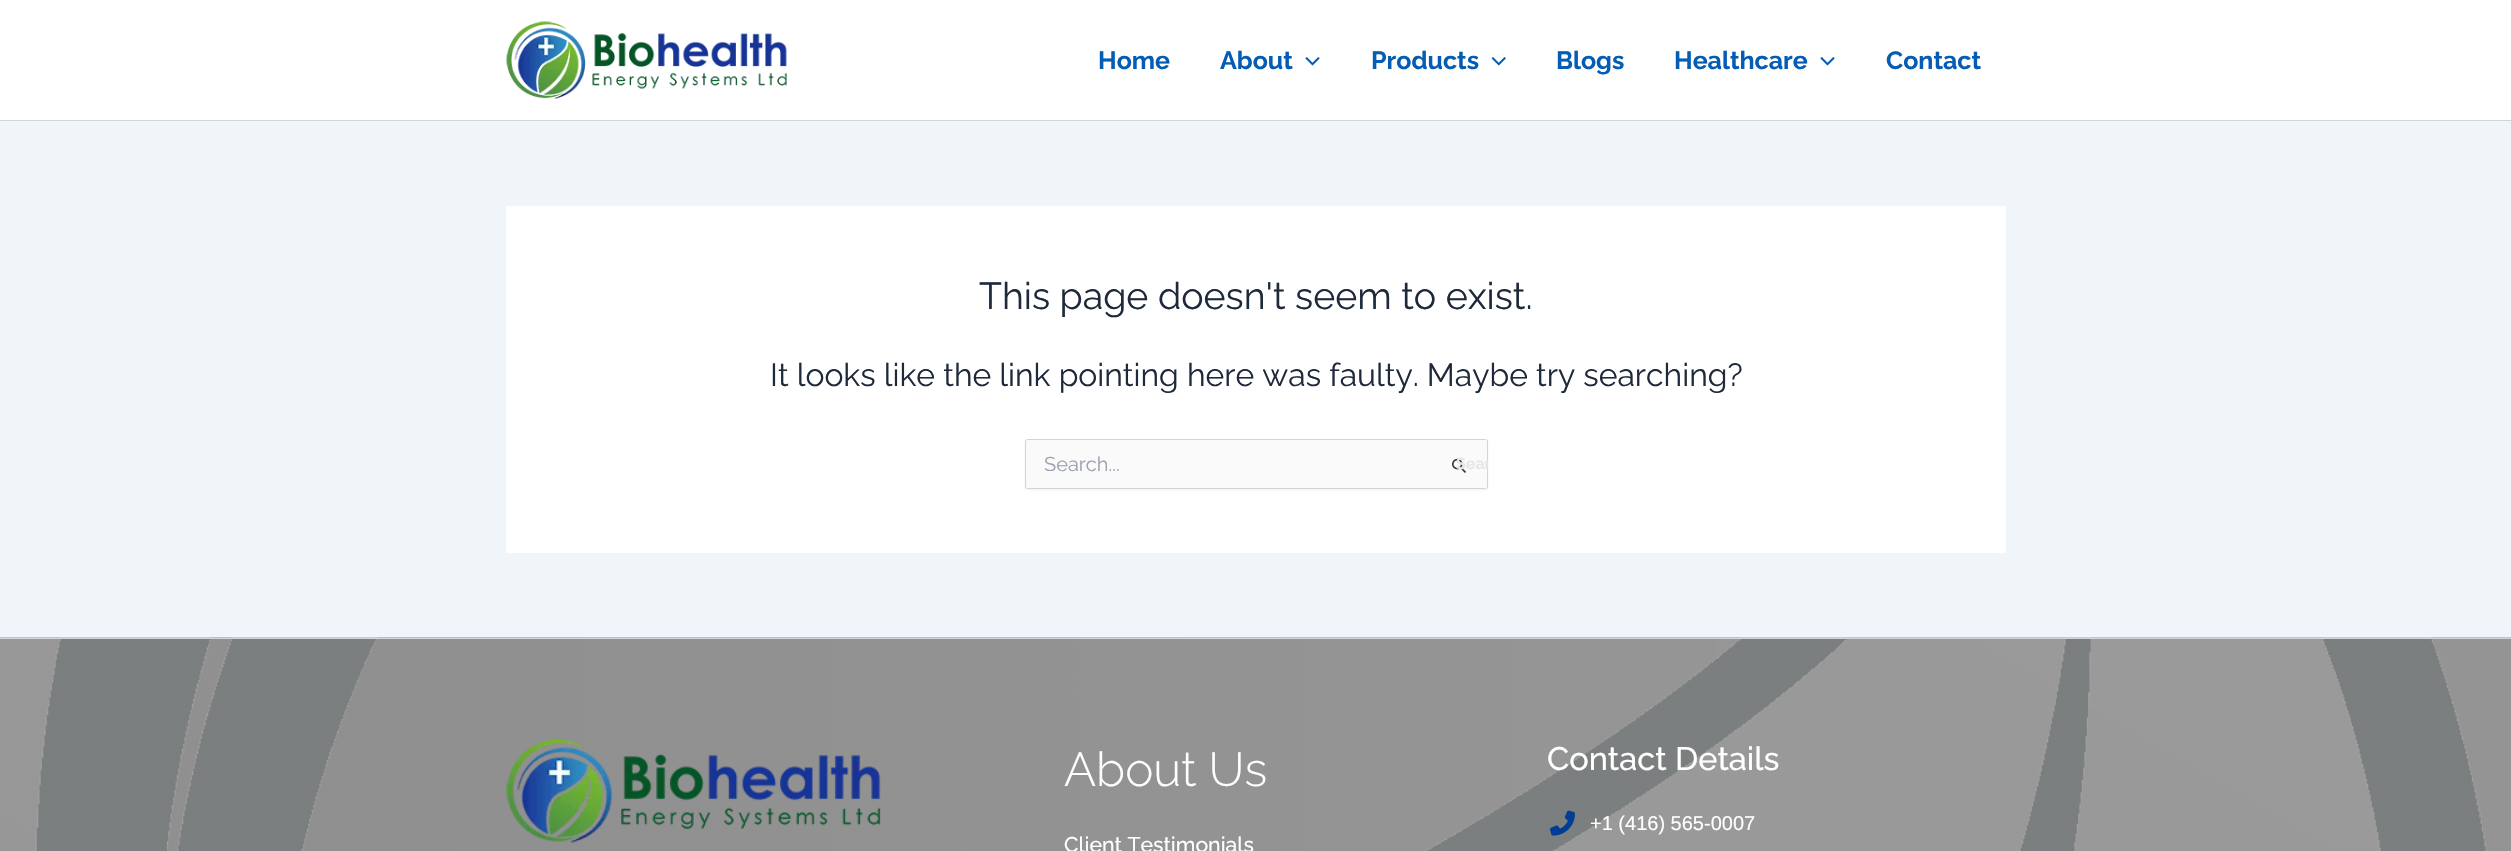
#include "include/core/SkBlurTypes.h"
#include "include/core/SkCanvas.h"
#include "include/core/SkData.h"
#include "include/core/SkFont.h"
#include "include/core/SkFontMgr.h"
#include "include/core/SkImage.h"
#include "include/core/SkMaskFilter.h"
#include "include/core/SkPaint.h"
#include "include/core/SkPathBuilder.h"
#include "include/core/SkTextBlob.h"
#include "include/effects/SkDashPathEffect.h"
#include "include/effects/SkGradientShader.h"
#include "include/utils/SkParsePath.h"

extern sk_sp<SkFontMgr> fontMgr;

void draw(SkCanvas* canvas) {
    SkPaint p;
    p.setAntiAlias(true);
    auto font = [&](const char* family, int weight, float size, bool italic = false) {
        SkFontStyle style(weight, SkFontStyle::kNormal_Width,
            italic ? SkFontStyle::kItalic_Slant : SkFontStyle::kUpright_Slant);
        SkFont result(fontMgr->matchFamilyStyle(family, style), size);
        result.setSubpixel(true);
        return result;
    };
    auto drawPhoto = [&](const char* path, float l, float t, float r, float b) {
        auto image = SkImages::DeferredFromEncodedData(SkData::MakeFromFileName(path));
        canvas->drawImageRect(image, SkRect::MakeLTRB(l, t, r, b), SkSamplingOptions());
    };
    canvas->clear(0xFFF0F5FA);
    p.setColor(0xFFFFFFFF);
    canvas->drawRect(SkRect::MakeLTRB(0, 0, 2511, 120), p);
    p.setColor(0xFFD1D5DB);
    canvas->drawRect(SkRect::MakeLTRB(0, 120, 2511, 121), p);
    drawPhoto("media/1.png", 506, 21, 787, 99);
    auto font1 = font("Raleway", 700, 25);
    p.setColor(0xFF045CB4);
    canvas->drawString("Home", 1098, 69, font1, p);
    canvas->drawString("About", 1220, 69, font1, p);
    drawPhoto("media/2.png", 1305, 57, 1320, 66);
    canvas->drawString("Products", 1371, 69, font1, p);
    drawPhoto("media/3.png", 1491, 57, 1506, 66);
    canvas->drawString("Blogs", 1556, 69, font1, p);
    canvas->drawString("Healthcare", 1674, 69, font1, p);
    drawPhoto("media/2.png", 1820, 57, 1835, 66);
    canvas->drawString("Contact", 1886, 69, font1, p);
    p.setColor(0xFFFFFFFF);
    canvas->drawRect(SkRect::MakeLTRB(506, 206, 2006, 553), p);
    auto font2 = font("Raleway", 400, 37.5f);
    p.setColor(0xFF1E293B);
    canvas->drawString("This page doesn't seem to exist.", 979, 309, font2, p);
    auto font3 = font("Raleway", 400, 31.9f);
    canvas->drawString("It looks like the link pointing here was faulty. Maybe try searching?", 770, 386, font3, p);
    p.setColor(0x0D000000);
    p.setMaskFilter(SkMaskFilter::MakeBlur(kNormal_SkBlurStyle, 1));
    canvas->drawRoundRect(SkRect::MakeLTRB(1025, 440, 1488, 490), 2.5f, 2.5f, p);
    p.setMaskFilter(nullptr);
    p.setColor(0xFFFAFAFA);
    canvas->drawRoundRect(SkRect::MakeLTRB(1025.5f, 439.5f, 1487.5f, 488.5f), 2, 2, p);
    p.setStyle(SkPaint::kStroke_Style);
    p.setStrokeWidth(1);
    p.setColor(0xFFD1D5DB);
    canvas->drawRoundRect(SkRect::MakeLTRB(1025.5f, 439.5f, 1487.5f, 488.5f), 2, 2, p);
    auto font4 = font("Raleway", 400, 20);
    p.setStyle(SkPaint::kFill_Style);
    p.setColor(0xFF9CA3AF);
    canvas->drawString("Search...", 1044, 471, font4, p);
    drawPhoto("media/4.png", 1452, 458, 1466, 473);
    canvas->save();
    canvas->clipPath(SkPathBuilder().moveTo(1433.5f, 439).lineTo(1485.5f, 439).cubicTo(1487, 439, 1488, 440, 1488, 441.5f).lineTo(1488, 485.5f).cubicTo(1488, 487, 1487, 488, 1485.5f, 488).lineTo(1433.5f, 488).cubicTo(1432, 488, 1431, 487, 1431, 485.5f).lineTo(1431, 441.5f).cubicTo(1431, 440, 1432, 439, 1433.5f, 439).close().detach(), true);
    auto font5 = font("Raleway", 700, 16);
    p.setColor(0xFFE7E7E7);
    canvas->drawString("Sear", 1456, 469, font5, p);
    canvas->restore();
    p.setColor(0xFFADB2B3);
    canvas->drawRect(SkRect::MakeLTRB(36, 639, 2486, 851), p);
    drawPhoto("media/5.png", 0, 637, 2511, 851);
    p.setColor(0xFFD1D5DB);
    canvas->drawRect(SkRect::MakeLTRB(0, 638, 2511, 639), p);
    drawPhoto("media/6.png", 506, 738, 881, 843);
    auto font6 = font("Raleway", 300, 47.5f);
    p.setColor(0xFFFFFFFF);
    canvas->drawString("About Us", 1064, 786, font6, p);
    auto font7 = font("Raleway", 500, 21.25f);
    canvas->drawString("Client Testimonials", 1064, 852, font7, p);
    auto font8 = font("Raleway", 500, 32.5f);
    canvas->drawString("Contact Details", 1547, 770, font8, p);
    drawPhoto("media/7.png", 1550, 810, 1575, 836);
    auto font9 = font("Liberation Sans", 400, 20);
    canvas->drawString("+1 (416) 565-0007", 1590, 830, font9, p);
}
